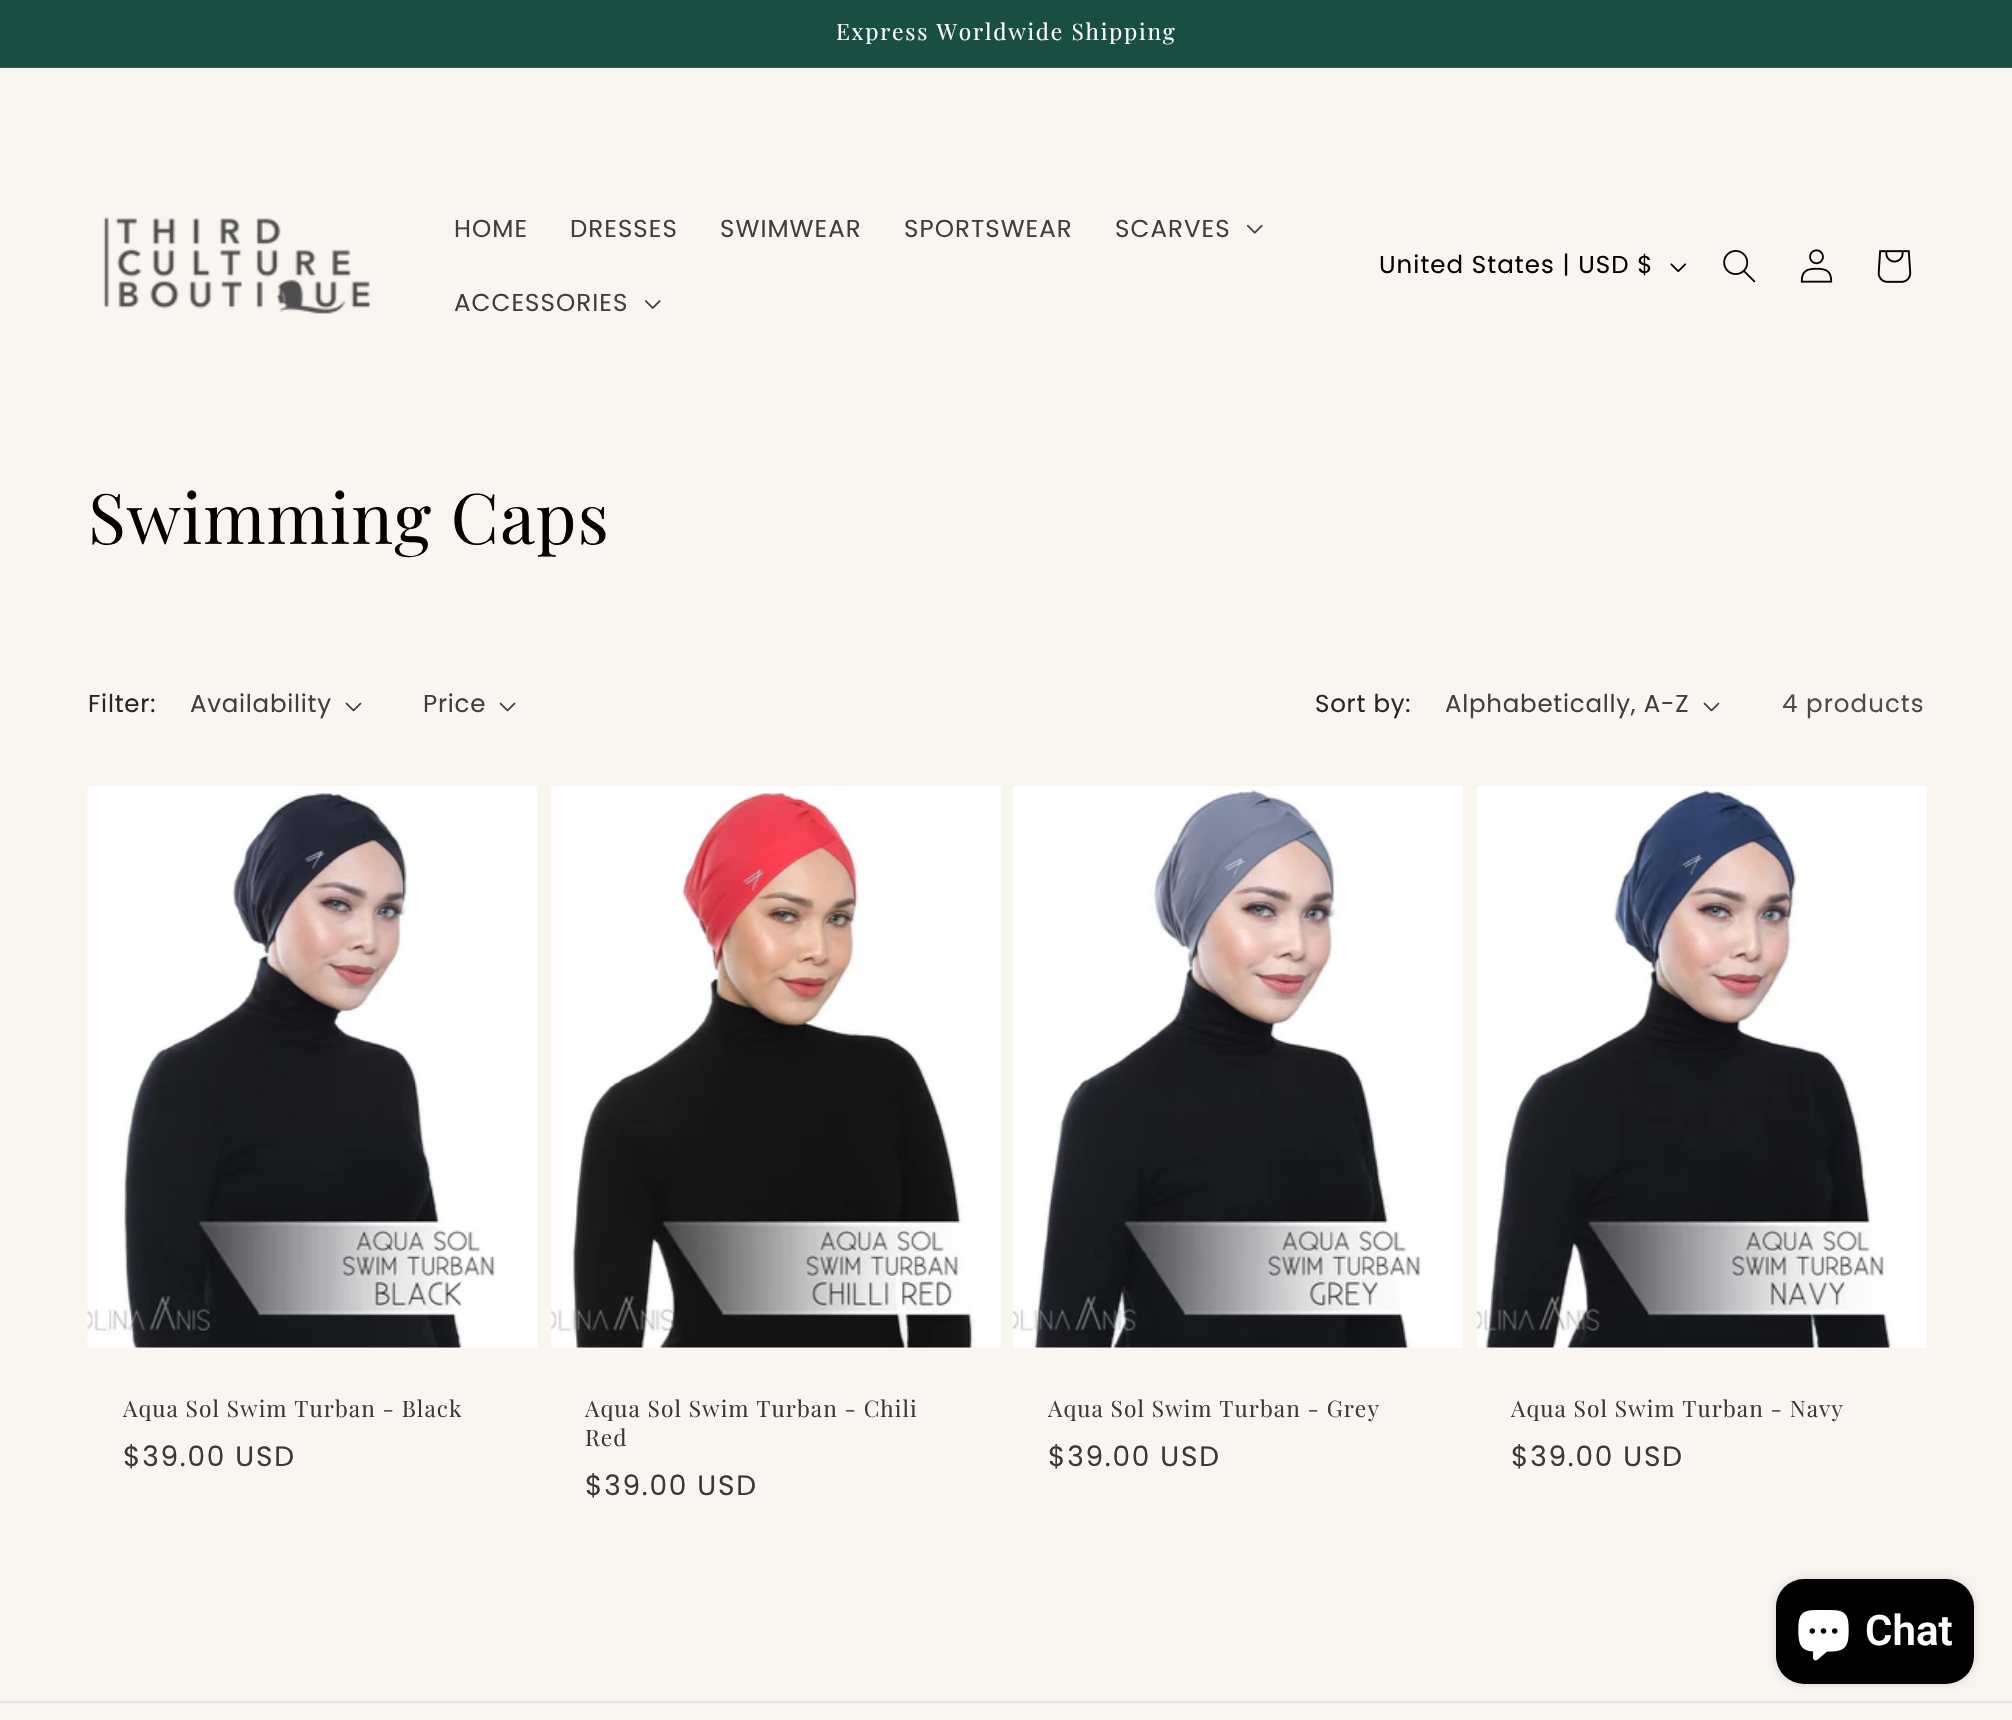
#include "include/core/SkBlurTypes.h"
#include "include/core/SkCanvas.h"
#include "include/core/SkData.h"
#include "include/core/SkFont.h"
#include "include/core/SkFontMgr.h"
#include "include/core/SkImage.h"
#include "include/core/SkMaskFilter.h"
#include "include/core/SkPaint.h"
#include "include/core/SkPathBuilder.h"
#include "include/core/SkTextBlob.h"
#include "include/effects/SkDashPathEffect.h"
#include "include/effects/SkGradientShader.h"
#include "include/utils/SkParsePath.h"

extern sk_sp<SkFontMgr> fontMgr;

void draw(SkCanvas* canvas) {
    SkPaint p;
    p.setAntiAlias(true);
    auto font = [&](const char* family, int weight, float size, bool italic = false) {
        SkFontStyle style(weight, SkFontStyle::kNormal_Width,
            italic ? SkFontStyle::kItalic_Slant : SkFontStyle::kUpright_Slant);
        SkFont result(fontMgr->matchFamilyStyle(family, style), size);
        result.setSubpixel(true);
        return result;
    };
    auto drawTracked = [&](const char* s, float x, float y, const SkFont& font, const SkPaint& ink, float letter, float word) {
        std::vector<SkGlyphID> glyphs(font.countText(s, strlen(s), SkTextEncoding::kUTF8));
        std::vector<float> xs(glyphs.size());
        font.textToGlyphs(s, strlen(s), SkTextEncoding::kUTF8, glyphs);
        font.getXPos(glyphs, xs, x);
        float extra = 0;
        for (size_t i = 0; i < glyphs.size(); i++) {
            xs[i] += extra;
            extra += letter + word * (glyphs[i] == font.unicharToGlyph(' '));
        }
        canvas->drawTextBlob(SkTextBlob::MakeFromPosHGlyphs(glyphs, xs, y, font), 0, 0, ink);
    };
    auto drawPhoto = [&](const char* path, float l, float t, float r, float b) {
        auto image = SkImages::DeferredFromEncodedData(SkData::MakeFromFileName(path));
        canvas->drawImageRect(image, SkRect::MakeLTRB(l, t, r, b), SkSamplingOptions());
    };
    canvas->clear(0xFFF9F6F2);
    p.setColor(0xFF194E42);
    canvas->drawRect(SkRect::MakeLTRB(0, 0, 2012, 67), p);
    p.setColor(0xFF2B5C51);
    canvas->drawRect(SkRect::MakeLTRB(0, 67, 2012, 68), p);
    auto font1 = font("Playfair Display", 400, 22.75f);
    p.setColor(0xFFFFFFFF);
    drawTracked("Express Worldwide Shipping", 836, 40, font1, p, 1.75f, 0);
    drawPhoto("media/1.png", 103, 216, 371, 314);
    auto font2 = font("Poppins", 400, 24.5f);
    p.setColor(0xFF433E3D);
    {
        const struct { const char* s; float x, y; } items[] = {
            {"HOME", 454, 237},
            {"DRESSES", 570, 237},
            {"SWIMWEAR", 720, 237},
            {"SPORTSWEAR", 904, 237},
            {"SCARVES", 1115, 237},
        };
        for (auto [s, x, y] : items) {
            drawTracked(s, x, y, font2, p, 1.05f, 0);
        }
    }
    drawPhoto("media/2.png", 1246, 224, 1263, 234);
    drawTracked("ACCESSORIES", 454, 311, font2, p, 1.05f, 0);
    drawPhoto("media/3.png", 645, 300, 661, 309);
    p.setColor(0xFF060000);
    drawTracked("United States | USD $", 1379, 273, font2, p, 1.05f, 0);
    drawPhoto("media/4.png", 1670, 263, 1687, 273);
    drawPhoto("media/5.png", 1723, 250, 1756, 283);
    drawPhoto("media/6.png", 1800, 249, 1833, 283);
    drawPhoto("media/7.png", 1877, 250, 1912, 283);
    auto font3 = font("Playfair Display", 400, 70);
    drawTracked("Swimming Caps", 88, 544, font3, p, 1.05f, 0);
    p.setColor(0xFF2A2524);
    drawTracked("Filter:", 88, 712, font2, p, 0.75f, 0);
    p.setColor(0xFF433E3D);
    drawTracked("Availability", 190, 712, font2, p, 0.75f, 0);
    drawPhoto("media/8.png", 345, 702, 362, 712);
    drawTracked("Price", 423, 712, font2, p, 0.75f, 0);
    drawPhoto("media/8.png", 499, 702, 516, 712);
    p.setColor(0xFF2A2524);
    drawTracked("Sort by:", 1315, 712, font2, p, 0.75f, 0);
    p.setColor(0xFF433E3D);
    drawTracked("Alphabetically, A-Z", 1445, 712, font2, p, 0.75f, 0);
    drawPhoto("media/8.png", 1703, 702, 1720, 712);
    p.setColor(0xFF4F4A49);
    drawTracked("4 products", 1782, 712, font2, p, 1.05f, 0);
    drawPhoto("media/9.png", 87, 786, 538, 1348);
    p.setColor(0xFF3A3A3A);
    drawTracked("Aqua Sol Swim Turban - Black", 123, 1417, font1, p, 1.05f, 0);
    auto font4 = font("Poppins", 400, 28);
    drawTracked("$39.00 USD", 123, 1466, font4, p, 1.75f, 0);
    drawPhoto("media/10.png", 551, 786, 1001, 1348);
    drawTracked("Aqua Sol Swim Turban - Chili", 585, 1417, font1, p, 1.05f, 0);
    drawTracked("Red", 585, 1446, font1, p, 1.05f, 0);
    drawTracked("$39.00 USD", 585, 1495, font4, p, 1.75f, 0);
    drawPhoto("media/11.png", 1013, 786, 1463, 1348);
    drawTracked("Aqua Sol Swim Turban - Grey", 1048, 1417, font1, p, 1.05f, 0);
    drawTracked("$39.00 USD", 1048, 1466, font4, p, 1.75f, 0);
    drawPhoto("media/12.png", 1477, 786, 1927, 1348);
    drawTracked("Aqua Sol Swim Turban - Navy", 1511, 1417, font1, p, 1.05f, 0);
    drawTracked("$39.00 USD", 1511, 1466, font4, p, 1.75f, 0);
    p.setColor(0x26000000);
    p.setMaskFilter(SkMaskFilter::MakeBlur(kNormal_SkBlurStyle, 4.5f));
    canvas->drawRoundRect(SkRect::MakeLTRB(1776, 1579, 1974, 1684), 28, 28, p);
    p.setMaskFilter(nullptr);
    p.setColor(0xFF000000);
    canvas->drawRoundRect(SkRect::MakeLTRB(1776, 1579, 1974, 1684), 28, 28, p);
    drawPhoto("media/13.png", 1798, 1610, 1849, 1661);
    auto font5 = font("Roboto", 600, 42);
    p.setColor(0xFFFFFFFF);
    canvas->drawString("Chat", 1865, 1645, font5, p);
    p.setColor(0xFFE6E2DF);
    canvas->drawRect(SkRect::MakeLTRB(0, 1701, 2012, 1703), p);
}
